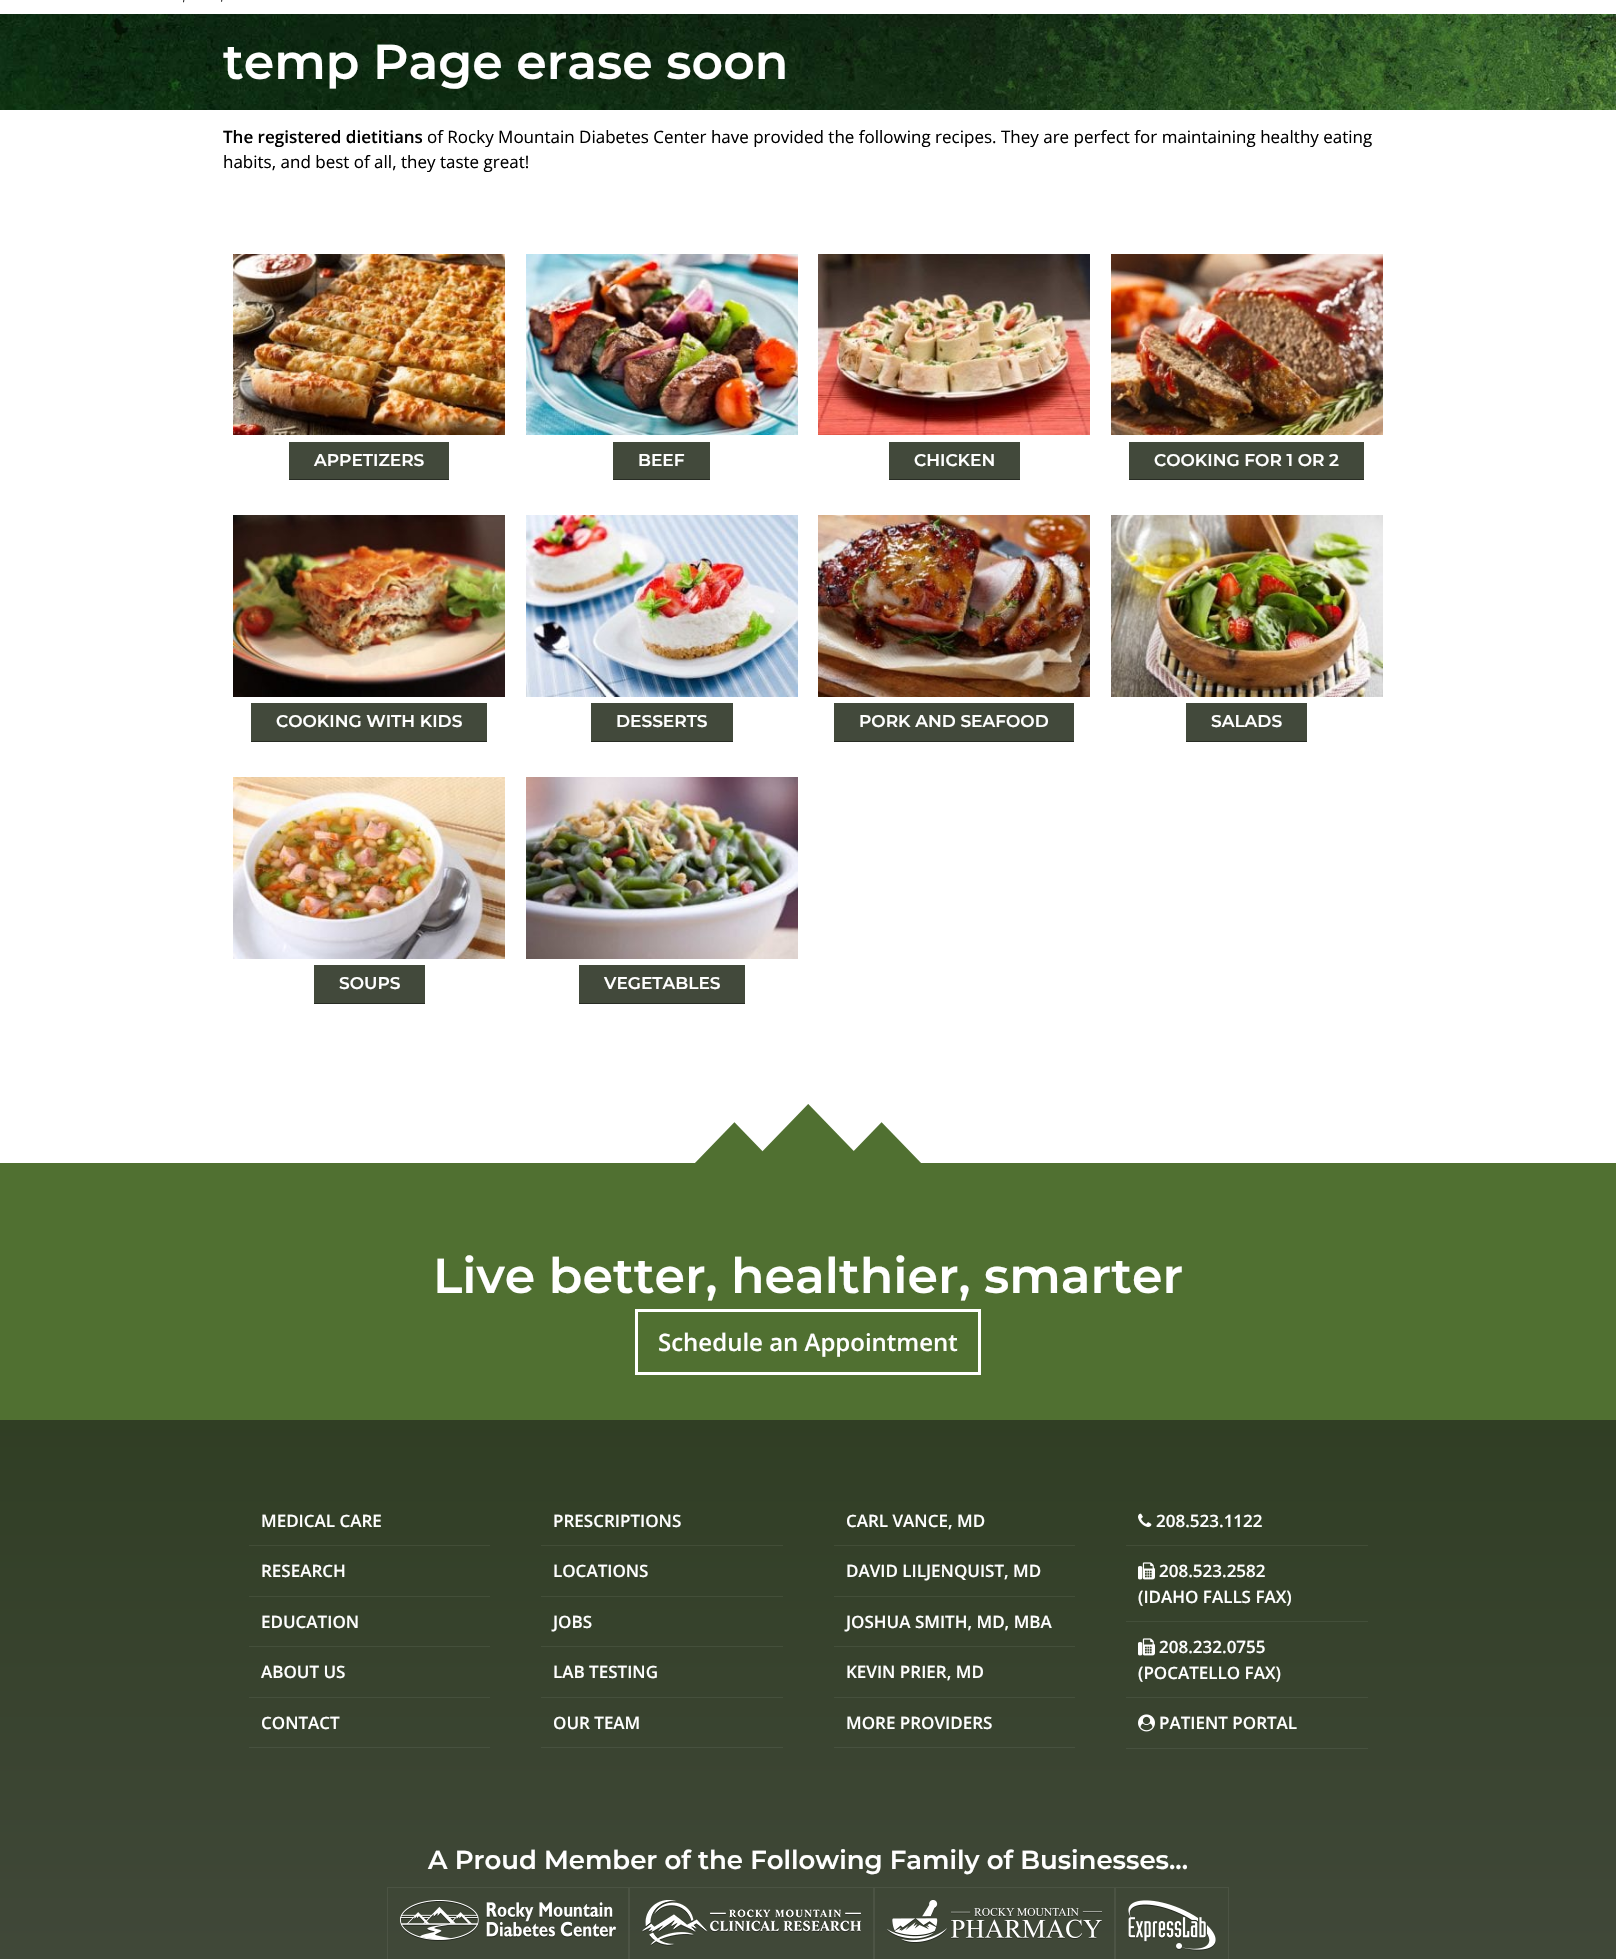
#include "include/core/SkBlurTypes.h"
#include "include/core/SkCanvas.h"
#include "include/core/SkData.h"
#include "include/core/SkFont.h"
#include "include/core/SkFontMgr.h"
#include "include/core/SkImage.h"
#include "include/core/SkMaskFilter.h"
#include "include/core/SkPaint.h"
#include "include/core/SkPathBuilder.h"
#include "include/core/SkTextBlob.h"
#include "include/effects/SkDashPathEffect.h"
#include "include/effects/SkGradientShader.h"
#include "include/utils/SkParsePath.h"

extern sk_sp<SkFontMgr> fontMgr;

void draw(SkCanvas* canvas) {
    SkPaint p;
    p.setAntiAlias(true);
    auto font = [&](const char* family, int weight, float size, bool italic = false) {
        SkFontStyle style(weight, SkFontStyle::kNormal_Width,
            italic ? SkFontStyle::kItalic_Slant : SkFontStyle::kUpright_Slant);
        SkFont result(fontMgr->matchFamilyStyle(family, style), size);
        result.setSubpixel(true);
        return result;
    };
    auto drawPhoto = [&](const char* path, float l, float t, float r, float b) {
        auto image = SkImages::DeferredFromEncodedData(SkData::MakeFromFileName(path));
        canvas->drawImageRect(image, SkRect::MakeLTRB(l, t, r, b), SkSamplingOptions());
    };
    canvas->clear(0xFFFFFFFF);
    drawPhoto("media/1.png", 183, 0, 223, 3);
    drawPhoto("media/2.png", 0, 14, 1616, 110);
    auto font1 = font("Montserrat", 600, 49);
    p.setColor(0xFFFFFFFF);
    canvas->drawString("temp Page erase soon", 223, 79, font1, p);
    auto font2 = font("Open Sans", 600, 17);
    p.setColor(0xFF000000);
    canvas->drawString("The registered dietitians", 223, 143, font2, p);
    auto font3 = font("Open Sans", 400, 17);
    canvas->drawString("of Rocky Mountain Diabetes Center have provided the following recipes. They are perfect for maintaining healthy eating", 427, 143, font3, p);
    canvas->drawString("habits, and best of all, they taste great!", 223, 168, font3, p);
    drawPhoto("media/3.png", 233, 254, 505, 435);
    p.setColor(0xFF42493B);
    canvas->drawRect(SkRect::MakeLTRB(289, 442, 449, 479), p);
    p.setColor(0xFF282C24);
    canvas->drawRect(SkRect::MakeLTRB(289, 479, 449, 480), p);
    auto font4 = font("Montserrat", 600, 17);
    p.setColor(0xFFFFFFFF);
    canvas->drawString("APPETIZERS", 314, 466, font4, p);
    drawPhoto("media/4.png", 526, 254, 798, 435);
    p.setColor(0xFF42493B);
    canvas->drawRect(SkRect::MakeLTRB(613, 442, 710, 479), p);
    p.setColor(0xFF282C24);
    canvas->drawRect(SkRect::MakeLTRB(613, 479, 710, 480), p);
    p.setColor(0xFFFFFFFF);
    canvas->drawString("BEEF", 638, 466, font4, p);
    drawPhoto("media/5.png", 818, 254, 1090, 435);
    p.setColor(0xFF42493B);
    canvas->drawRect(SkRect::MakeLTRB(889, 442, 1020, 479), p);
    p.setColor(0xFF282C24);
    canvas->drawRect(SkRect::MakeLTRB(889, 479, 1020, 480), p);
    p.setColor(0xFFFFFFFF);
    canvas->drawString("CHICKEN", 914, 466, font4, p);
    drawPhoto("media/6.png", 1111, 254, 1383, 435);
    p.setColor(0xFF42493B);
    canvas->drawRect(SkRect::MakeLTRB(1129, 442, 1364, 479), p);
    p.setColor(0xFF282C24);
    canvas->drawRect(SkRect::MakeLTRB(1129, 479, 1364, 480), p);
    p.setColor(0xFFFFFFFF);
    canvas->drawString("COOKING FOR 1 OR 2", 1154, 466, font4, p);
    drawPhoto("media/7.png", 233, 515, 505, 697);
    p.setColor(0xFF42493B);
    canvas->drawRect(SkRect::MakeLTRB(251, 703, 487, 741), p);
    p.setColor(0xFF282C24);
    canvas->drawRect(SkRect::MakeLTRB(251, 741, 487, 742), p);
    p.setColor(0xFFFFFFFF);
    canvas->drawString("COOKING WITH KIDS", 276, 727, font4, p);
    drawPhoto("media/8.png", 526, 515, 798, 697);
    p.setColor(0xFF42493B);
    canvas->drawRect(SkRect::MakeLTRB(591, 703, 733, 741), p);
    p.setColor(0xFF282C24);
    canvas->drawRect(SkRect::MakeLTRB(591, 741, 733, 742), p);
    p.setColor(0xFFFFFFFF);
    canvas->drawString("DESSERTS", 616, 727, font4, p);
    drawPhoto("media/9.png", 818, 515, 1090, 697);
    p.setColor(0xFF42493B);
    canvas->drawRect(SkRect::MakeLTRB(834, 703, 1074, 741), p);
    p.setColor(0xFF282C24);
    canvas->drawRect(SkRect::MakeLTRB(834, 741, 1074, 742), p);
    p.setColor(0xFFFFFFFF);
    canvas->drawString("PORK AND SEAFOOD", 859, 727, font4, p);
    drawPhoto("media/10.png", 1111, 515, 1383, 697);
    p.setColor(0xFF42493B);
    canvas->drawRect(SkRect::MakeLTRB(1186, 703, 1307, 741), p);
    p.setColor(0xFF282C24);
    canvas->drawRect(SkRect::MakeLTRB(1186, 741, 1307, 742), p);
    p.setColor(0xFFFFFFFF);
    canvas->drawString("SALADS", 1211, 727, font4, p);
    drawPhoto("media/11.png", 233, 777, 505, 959);
    p.setColor(0xFF42493B);
    canvas->drawRect(SkRect::MakeLTRB(314, 965, 425, 1003), p);
    p.setColor(0xFF282C24);
    canvas->drawRect(SkRect::MakeLTRB(314, 1003, 425, 1004), p);
    p.setColor(0xFFFFFFFF);
    canvas->drawString("SOUPS", 339, 989, font4, p);
    drawPhoto("media/12.png", 526, 777, 798, 959);
    p.setColor(0xFF42493B);
    canvas->drawRect(SkRect::MakeLTRB(579, 965, 745, 1003), p);
    p.setColor(0xFF282C24);
    canvas->drawRect(SkRect::MakeLTRB(579, 1003, 745, 1004), p);
    p.setColor(0xFFFFFFFF);
    canvas->drawString("VEGETABLES", 604, 989, font4, p);
    drawPhoto("media/13.png", 695, 1104, 921, 1163);
    p.setColor(0xFF507031);
    canvas->drawRect(SkRect::MakeLTRB(0, 1163, 1616, 1420), p);
    p.setColor(0xFFFFFFFF);
    canvas->drawString("Live better, healthier, smarter", 433, 1293, font1, p);
    p.setStyle(SkPaint::kStroke_Style);
    p.setStrokeWidth(3);
    canvas->drawRect(SkRect::MakeLTRB(636.5f, 1310.5f, 979.5f, 1373.5f), p);
    auto font5 = font("Open Sans", 600, 24);
    p.setStyle(SkPaint::kFill_Style);
    canvas->drawString("Schedule an Appointment", 658, 1351, font5, p);
    {
        const SkColor colors[] = {0xFF303E24, 0xFF42493B};
        const float stops[] = {0, 1};
        const SkPoint ends[] = {{808, 1420}, {808, 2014}};
        p.setShader(SkGradientShader::MakeLinear(ends, colors, stops, 2, SkTileMode::kClamp));
        p.setAlpha(255);
    }
    canvas->drawRect(SkRect::MakeLTRB(0, 1420, 1616, 1959), p);
    p.setShader(nullptr);
    p.setColor(0xFF424D37);
    canvas->drawRect(SkRect::MakeLTRB(249, 1545, 490, 1546), p);
    p.setColor(0xFFFFFFFF);
    canvas->drawString("MEDICAL CARE", 261, 1527, font2, p);
    p.setColor(0xFF434E39);
    canvas->drawRect(SkRect::MakeLTRB(249, 1596, 490, 1597), p);
    p.setColor(0xFFFFFFFF);
    canvas->drawString("RESEARCH", 261, 1577, font2, p);
    p.setColor(0xFF444F3B);
    canvas->drawRect(SkRect::MakeLTRB(249, 1646, 490, 1647), p);
    p.setColor(0xFFFFFFFF);
    canvas->drawString("EDUCATION", 261, 1628, font2, p);
    p.setColor(0xFF45503D);
    canvas->drawRect(SkRect::MakeLTRB(249, 1697, 490, 1698), p);
    p.setColor(0xFFFFFFFF);
    canvas->drawString("ABOUT US", 261, 1678, font2, p);
    p.setColor(0xFF47513F);
    canvas->drawRect(SkRect::MakeLTRB(249, 1747, 490, 1748), p);
    p.setColor(0xFFFFFFFF);
    canvas->drawString("CONTACT", 261, 1729, font2, p);
    p.setColor(0xFF424D37);
    canvas->drawRect(SkRect::MakeLTRB(541, 1545, 783, 1546), p);
    p.setColor(0xFFFFFFFF);
    canvas->drawString("PRESCRIPTIONS", 553, 1527, font2, p);
    p.setColor(0xFF434E39);
    canvas->drawRect(SkRect::MakeLTRB(541, 1596, 783, 1597), p);
    p.setColor(0xFFFFFFFF);
    canvas->drawString("LOCATIONS", 553, 1577, font2, p);
    p.setColor(0xFF444F3B);
    canvas->drawRect(SkRect::MakeLTRB(541, 1646, 783, 1647), p);
    p.setColor(0xFFFFFFFF);
    canvas->drawString("JOBS", 553, 1628, font2, p);
    p.setColor(0xFF45503D);
    canvas->drawRect(SkRect::MakeLTRB(541, 1697, 783, 1698), p);
    p.setColor(0xFFFFFFFF);
    canvas->drawString("LAB TESTING", 553, 1678, font2, p);
    p.setColor(0xFF47513F);
    canvas->drawRect(SkRect::MakeLTRB(541, 1747, 783, 1748), p);
    p.setColor(0xFFFFFFFF);
    canvas->drawString("OUR TEAM", 553, 1729, font2, p);
    p.setColor(0xFF424D37);
    canvas->drawRect(SkRect::MakeLTRB(834, 1545, 1075, 1546), p);
    p.setColor(0xFFFFFFFF);
    canvas->drawString("CARL VANCE, MD", 846, 1527, font2, p);
    p.setColor(0xFF434E39);
    canvas->drawRect(SkRect::MakeLTRB(834, 1596, 1075, 1597), p);
    p.setColor(0xFFFFFFFF);
    canvas->drawString("DAVID LILJENQUIST, MD", 846, 1577, font2, p);
    p.setColor(0xFF444F3B);
    canvas->drawRect(SkRect::MakeLTRB(834, 1646, 1075, 1647), p);
    p.setColor(0xFFFFFFFF);
    canvas->drawString("JOSHUA SMITH, MD, MBA", 846, 1628, font2, p);
    p.setColor(0xFF45503D);
    canvas->drawRect(SkRect::MakeLTRB(834, 1697, 1075, 1698), p);
    p.setColor(0xFFFFFFFF);
    canvas->drawString("KEVIN PRIER, MD", 846, 1678, font2, p);
    p.setColor(0xFF47513F);
    canvas->drawRect(SkRect::MakeLTRB(834, 1747, 1075, 1748), p);
    p.setColor(0xFFFFFFFF);
    canvas->drawString("MORE PROVIDERS", 846, 1729, font2, p);
    p.setColor(0xFF424D37);
    canvas->drawRect(SkRect::MakeLTRB(1126, 1545, 1368, 1546), p);
    drawPhoto("media/14.png", 1138, 1513, 1152, 1527);
    p.setColor(0xFFFFFFFF);
    canvas->drawString("208.523.1122", 1156, 1527, font2, p);
    p.setColor(0xFF434F3A);
    canvas->drawRect(SkRect::MakeLTRB(1126, 1621, 1368, 1622), p);
    drawPhoto("media/15.png", 1138, 1562, 1155, 1580);
    p.setColor(0xFFFFFFFF);
    canvas->drawString("208.523.2582", 1159, 1577, font2, p);
    canvas->drawString("(IDAHO FALLS FAX)", 1138, 1603, font2, p);
    p.setColor(0xFF45503D);
    canvas->drawRect(SkRect::MakeLTRB(1126, 1697, 1368, 1698), p);
    drawPhoto("media/16.png", 1138, 1638, 1155, 1656);
    p.setColor(0xFFFFFFFF);
    canvas->drawString("208.232.0755", 1159, 1653, font2, p);
    canvas->drawString("(POCATELLO FAX)", 1138, 1679, font2, p);
    p.setColor(0xFF47513F);
    canvas->drawRect(SkRect::MakeLTRB(1126, 1748, 1368, 1749), p);
    drawPhoto("media/17.png", 1138, 1714, 1155, 1732);
    p.setColor(0xFFFFFFFF);
    canvas->drawString("PATIENT PORTAL", 1159, 1729, font2, p);
    auto font6 = font("Montserrat", 600, 26);
    canvas->drawString("A Proud Member of the Following Family of Businesses...", 428, 1869, font6, p);
    p.setStyle(SkPaint::kStroke_Style);
    p.setStrokeWidth(1);
    p.setColor(0x12EEEEEE);
    canvas->drawRect(SkRect::MakeLTRB(387.5f, 1887.5f, 628.5f, 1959.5f), p);
    drawPhoto("media/18.png", 400, 1900, 616, 1941);
    canvas->drawRect(SkRect::MakeLTRB(629.5f, 1887.5f, 873.5f, 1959.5f), p);
    drawPhoto("media/19.png", 642, 1900, 861, 1946);
    canvas->drawRect(SkRect::MakeLTRB(874.5f, 1887.5f, 1114.5f, 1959.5f), p);
    drawPhoto("media/20.png", 887, 1900, 1102, 1943);
    canvas->drawRect(SkRect::MakeLTRB(1115.5f, 1887.5f, 1228.5f, 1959.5f), p);
    drawPhoto("media/21.png", 1128, 1900, 1216, 1951);
}
